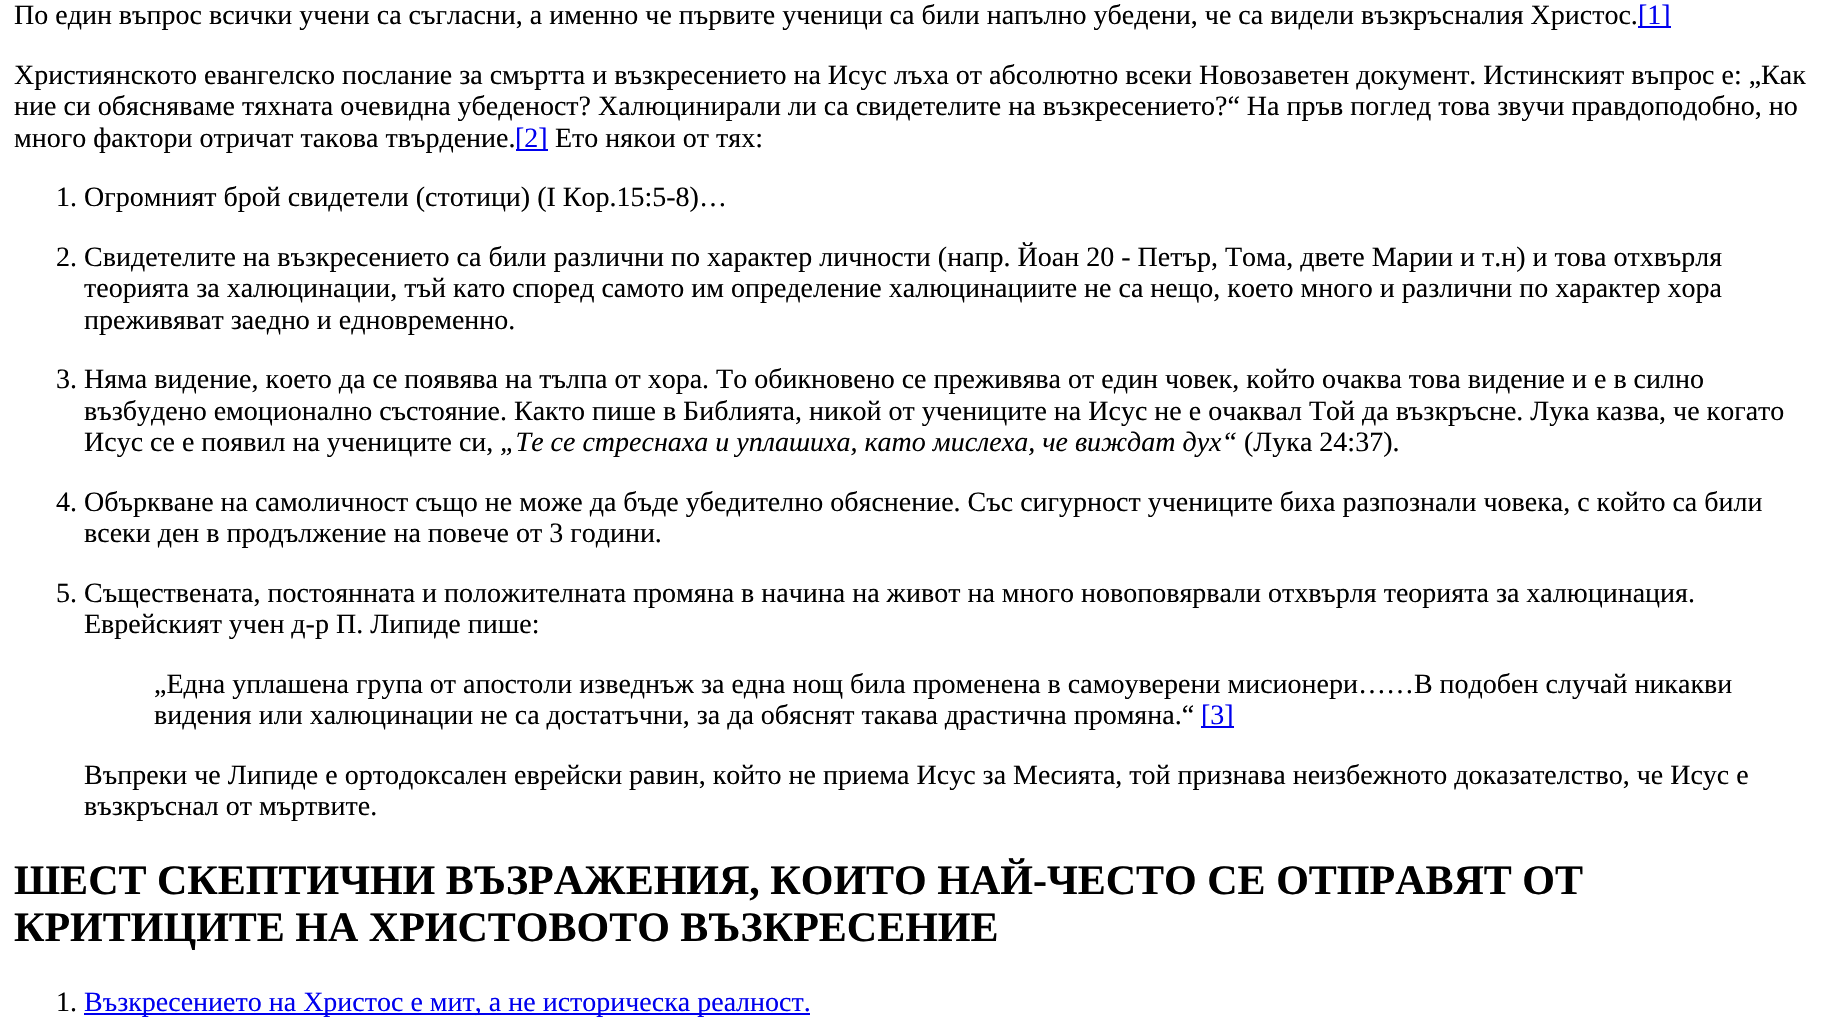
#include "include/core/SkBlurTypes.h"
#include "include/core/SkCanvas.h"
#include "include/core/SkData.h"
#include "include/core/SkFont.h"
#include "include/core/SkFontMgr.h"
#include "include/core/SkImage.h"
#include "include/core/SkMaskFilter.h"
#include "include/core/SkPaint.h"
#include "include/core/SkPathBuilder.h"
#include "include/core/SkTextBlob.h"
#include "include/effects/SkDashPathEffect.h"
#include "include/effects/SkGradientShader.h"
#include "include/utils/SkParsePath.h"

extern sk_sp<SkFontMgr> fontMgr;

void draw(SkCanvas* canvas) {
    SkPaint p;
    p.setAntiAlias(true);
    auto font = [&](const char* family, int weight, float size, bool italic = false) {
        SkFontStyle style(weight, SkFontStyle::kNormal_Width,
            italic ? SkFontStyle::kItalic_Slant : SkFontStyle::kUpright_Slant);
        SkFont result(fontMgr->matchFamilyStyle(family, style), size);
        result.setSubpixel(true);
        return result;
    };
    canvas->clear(0xFFFFFFFF);
    auto font1 = font("Liberation Serif", 400, 28);
    p.setColor(0xFF000000);
    canvas->drawString("По един въпрос всички учени са съгласни, а именно че първите ученици са били напълно убедени, че са видели възкръсналия Христос.", 14, 24, font1, p);
    p.setColor(0xFF0000EE);
    canvas->drawRect(SkRect::MakeLTRB(1638, 26, 1671, 28), p);
    canvas->drawString("[1]", 1638, 24, font1, p);
    p.setColor(0xFF000000);
    {
        const struct { const char* s; float x, y; } items[] = {
            {"Християнското евангелско послание за смъртта и възкресението на Исус лъха от абсолютно всеки Новозаветен документ. Истинският въпрос е: „Как", 14, 84},
            {"ние си обясняваме тяхната очевидна убеденост? Халюцинирали ли са свидетелите на възкресението?“ На пръв поглед това звучи правдоподобно, но", 14, 115},
            {"много фактори отричат такова твърдение.", 14, 147},
        };
        for (auto [s, x, y] : items) {
            canvas->drawString(s, x, y, font1, p);
        }
    }
    p.setColor(0xFF0000EE);
    canvas->drawRect(SkRect::MakeLTRB(516, 149, 548, 151), p);
    canvas->drawString("[2]", 515, 147, font1, p);
    p.setColor(0xFF000000);
    {
        const struct { const char* s; float x, y; } items[] = {
            {"Ето някои от тях:", 555, 147},
            {"1. Огромният брой свидетели (стотици) (I Кор.15:5-8)…", 56, 206},
            {"2. Свидетелите на възкресението са били различни по характер личности (напр. Йоан 20 - Петър, Тома, двете Марии и т.н) и това отхвърля", 56, 266},
            {"теорията за халюцинации, тъй като според самото им определение халюцинациите не са нещо, което много и различни по характер хора", 84, 297},
            {"преживяват заедно и едновременно.", 84, 329},
            {"3. Няма видение, което да се появява на тълпа от хора. То обикновено се преживява от един човек, който очаква това видение и е в силно", 56, 388},
            {"възбудено емоционално състояние. Както пише в Библията, никой от учениците на Исус не е очаквал Той да възкръсне. Лука казва, че когато", 84, 420},
            {"Исус се е появил на учениците си,", 84, 451},
        };
        for (auto [s, x, y] : items) {
            canvas->drawString(s, x, y, font1, p);
        }
    }
    auto font2 = font("Liberation Serif", 400, 28, true);
    canvas->drawString("„Те се стреснаха и уплашиха, като мислеха, че виждат дух“", 500, 451, font2, p);
    {
        const struct { const char* s; float x, y; } items[] = {
            {"(Лука 24:37).", 1244, 451},
            {"4. Объркване на самоличност също не може да бъде убедително обяснение. Със сигурност учениците биха разпознали човека, с който са били", 56, 511},
            {"всеки ден в продължение на повече от 3 години.", 84, 542},
            {"5. Съществената, постоянната и положителната промяна в начина на живот на много новоповярвали отхвърля теорията за халюцинация.", 56, 602},
            {"Еврейският учен д-р П. Липиде пише:", 84, 633},
            {"„Една уплашена група от апостоли изведнъж за една нощ била променена в самоуверени мисионери……В подобен случай никакви", 154, 693},
            {"видения или халюцинации не са достатъчни, за да обяснят такава драстична промяна.“", 154, 724},
        };
        for (auto [s, x, y] : items) {
            canvas->drawString(s, x, y, font1, p);
        }
    }
    p.setColor(0xFF0000EE);
    canvas->drawRect(SkRect::MakeLTRB(1201, 726, 1234, 728), p);
    canvas->drawString("[3]", 1201, 724, font1, p);
    p.setColor(0xFF000000);
    canvas->drawString("Въпреки че Липиде е ортодоксален еврейски равин, който не приема Исус за Месията, той признава неизбежното доказателство, че Исус е", 84, 784, font1, p);
    canvas->drawString("възкръснал от мъртвите.", 84, 815, font1, p);
    auto font3 = font("Liberation Serif", 700, 42);
    canvas->drawString("ШЕСТ СКЕПТИЧНИ ВЪЗРАЖЕНИЯ, КОИТО НАЙ-ЧЕСТО СЕ ОТПРАВЯТ ОТ", 14, 894, font3, p);
    canvas->drawString("КРИТИЦИТЕ НА ХРИСТОВОТО ВЪЗКРЕСЕНИЕ", 14, 941, font3, p);
    canvas->drawString("1.", 56, 1011, font1, p);
    p.setColor(0xFF0000EE);
    canvas->drawRect(SkRect::MakeLTRB(84, 1013, 810, 1015), p);
    canvas->drawString("Възкресението на Христос е мит, а не историческа реалност.", 84, 1011, font1, p);
}
